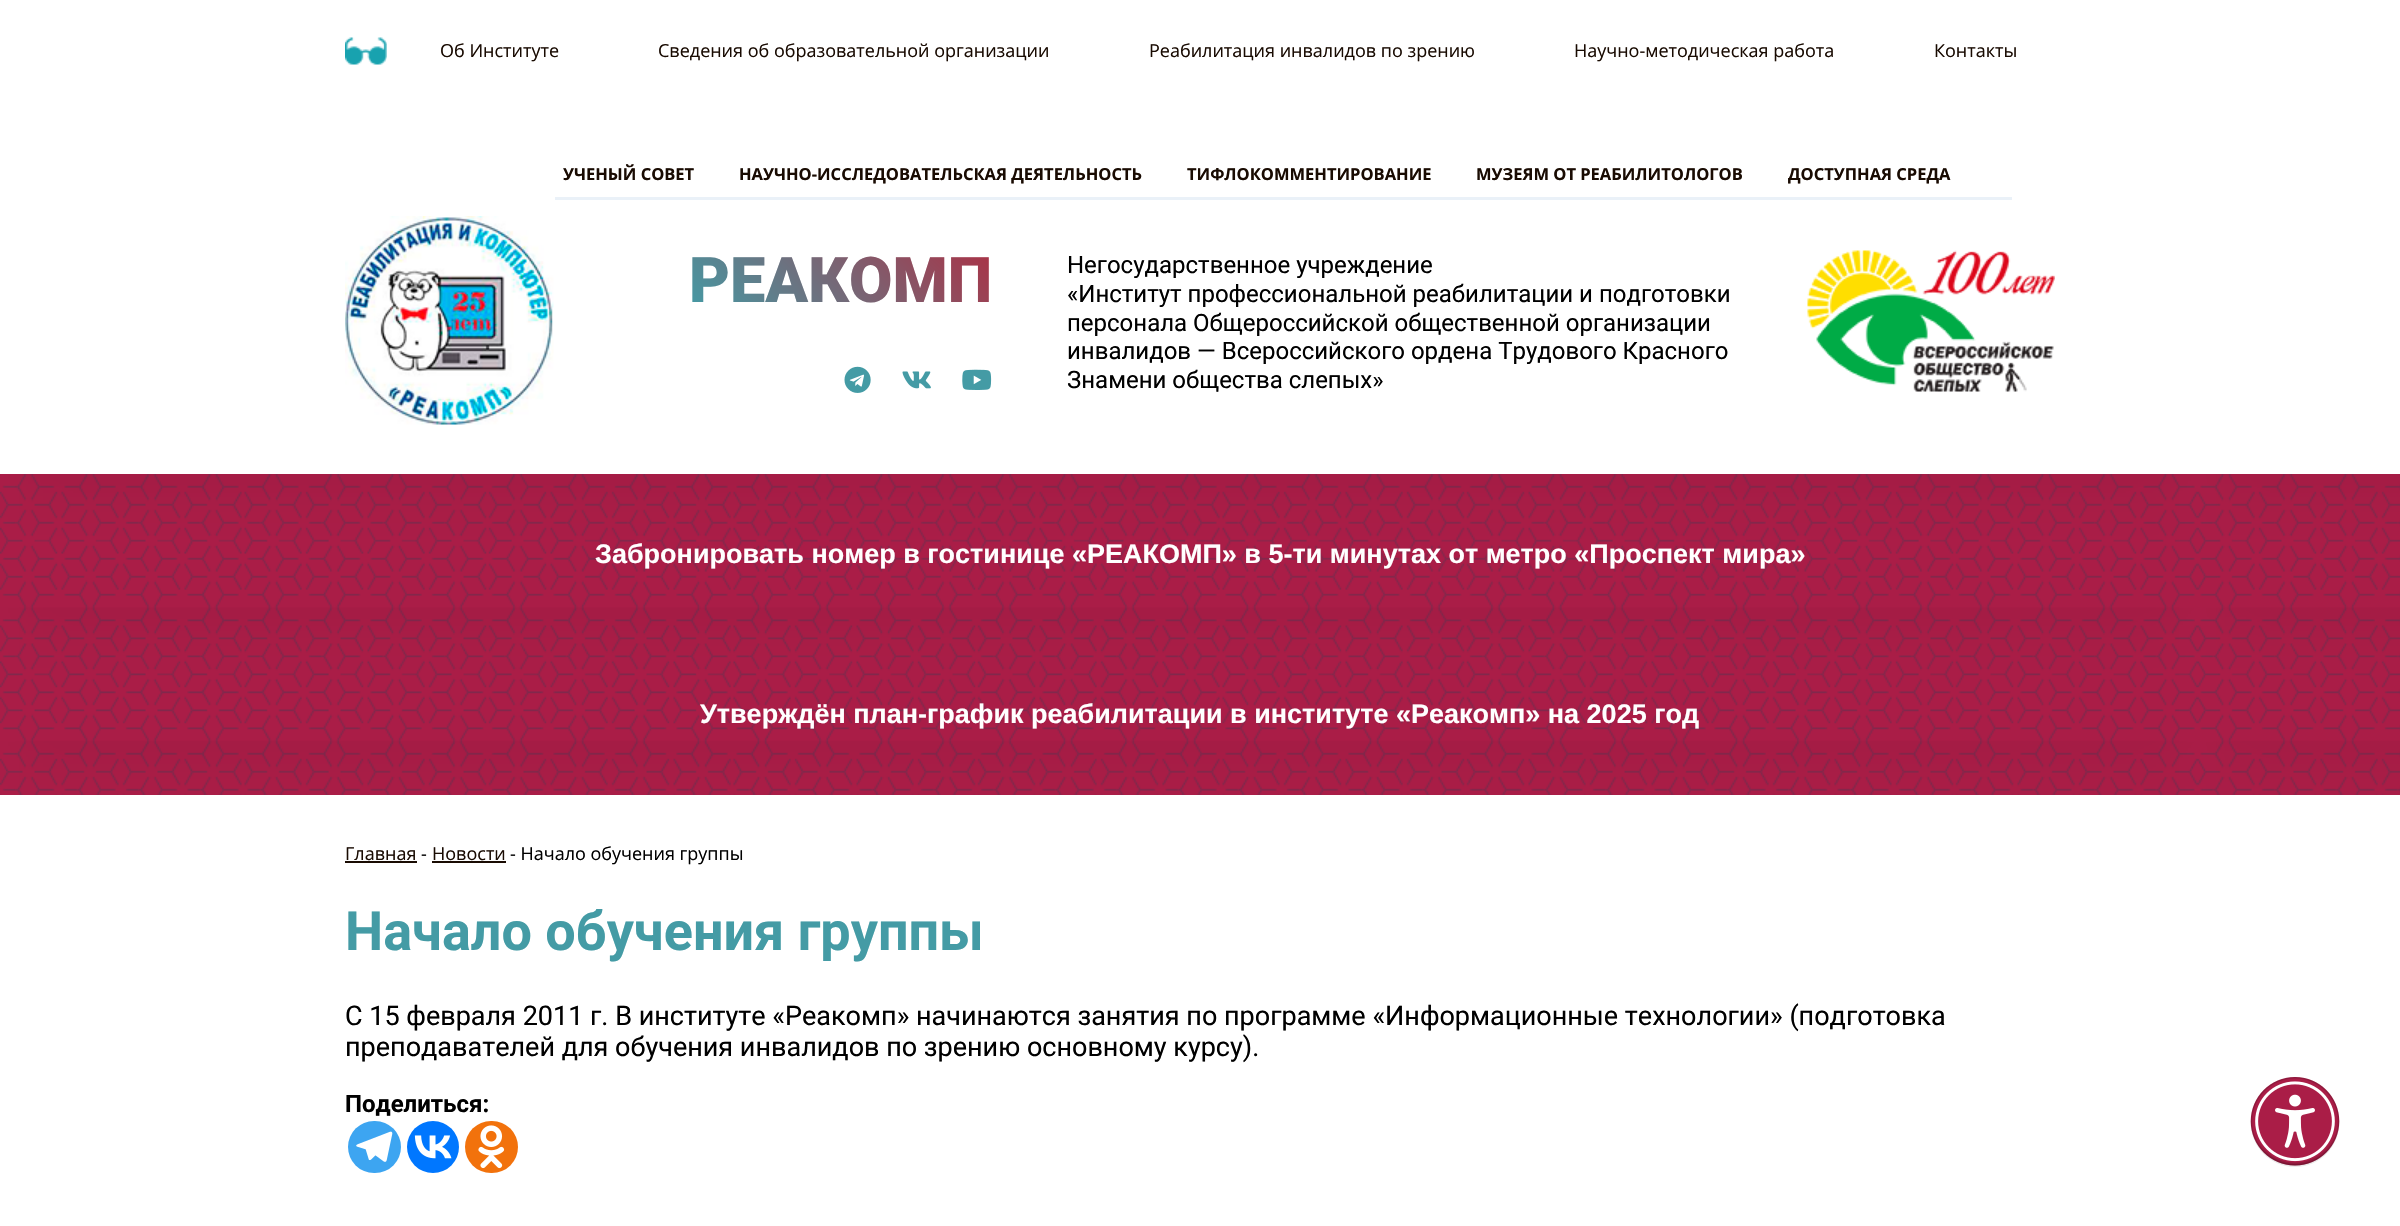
#include "include/core/SkBlurTypes.h"
#include "include/core/SkCanvas.h"
#include "include/core/SkData.h"
#include "include/core/SkFont.h"
#include "include/core/SkFontMgr.h"
#include "include/core/SkImage.h"
#include "include/core/SkMaskFilter.h"
#include "include/core/SkPaint.h"
#include "include/core/SkPathBuilder.h"
#include "include/core/SkTextBlob.h"
#include "include/effects/SkDashPathEffect.h"
#include "include/effects/SkGradientShader.h"
#include "include/utils/SkParsePath.h"

extern sk_sp<SkFontMgr> fontMgr;

void draw(SkCanvas* canvas) {
    SkPaint p;
    p.setAntiAlias(true);
    auto font = [&](const char* family, int weight, float size, bool italic = false) {
        SkFontStyle style(weight, SkFontStyle::kNormal_Width,
            italic ? SkFontStyle::kItalic_Slant : SkFontStyle::kUpright_Slant);
        SkFont result(fontMgr->matchFamilyStyle(family, style), size);
        result.setSubpixel(true);
        return result;
    };
    auto drawPhoto = [&](const char* path, float l, float t, float r, float b) {
        auto image = SkImages::DeferredFromEncodedData(SkData::MakeFromFileName(path));
        canvas->drawImageRect(image, SkRect::MakeLTRB(l, t, r, b), SkSamplingOptions());
    };
    canvas->clear(0xFFFFFFFF);
    drawPhoto("media/1.png", 345, 37, 387, 65);
    auto font1 = font("Open Sans", 400, 18);
    p.setColor(0xFF190B02);
    {
        const struct { const char* s; float x, y; } items[] = {
            {"Об Институте", 440, 57},
            {"Сведения об образовательной организации", 658, 57},
            {"Реабилитация инвалидов по зрению", 1149, 57},
            {"Научно-методическая работа", 1574, 57},
            {"Контакты", 1934, 57},
        };
        for (auto [s, x, y] : items) {
            canvas->drawString(s, x, y, font1, p);
        }
    }
    auto font2 = font("Open Sans", 700, 16.5f);
    canvas->drawString("УЧЕНЫЙ СОВЕТ", 563, 180, font2, p);
    p.setColor(0xFFEAF1F8);
    canvas->drawRect(SkRect::MakeLTRB(555, 197, 2012, 200), p);
    p.setColor(0xFF190B02);
    {
        const struct { const char* s; float x, y; } items[] = {
            {"НАУЧНО-ИССЛЕДОВАТЕЛЬСКАЯ ДЕЯТЕЛЬНОСТЬ", 739, 180},
            {"ТИФЛОКОММЕНТИРОВАНИЕ", 1187, 180},
            {"МУЗЕЯМ ОТ РЕАБИЛИТОЛОГОВ", 1476, 180},
            {"ДОСТУПНАЯ СРЕДА", 1788, 180},
        };
        for (auto [s, x, y] : items) {
            canvas->drawString(s, x, y, font2, p);
        }
    }
    drawPhoto("media/2.png", 345, 216, 554, 425);
    auto font3 = font("Roboto", 900, 63);
    {
        const SkColor colors[] = {0xFF449BA5, 0xFFAA3246};
        const float stops[] = {0, 1};
        const SkPoint ends[] = {{749, 372}, {932, 189}};
        p.setShader(SkGradientShader::MakeLinear(ends, colors, stops, 2, SkTileMode::kClamp));
        p.setAlpha(255);
    }
    canvas->drawString("РЕАКОМП", 689, 302, font3, p);
    drawPhoto("media/3.png", 844, 366, 871, 393);
    drawPhoto("media/4.png", 902, 371, 931, 389);
    drawPhoto("media/5.png", 962, 369, 992, 390);
    auto font4 = font("Roboto", 400, 24);
    p.setShader(nullptr);
    p.setColor(0xFF000000);
    {
        const struct { const char* s; float x, y; } items[] = {
            {"Негосударственное учреждение", 1067, 273},
            {"«Институт профессиональной реабилитации и подготовки", 1067, 302},
            {"персонала Общероссийской общественной организации", 1067, 331},
            {"инвалидов — Всероссийского ордена Трудового Красного", 1067, 359},
            {"Знамени общества слепых»", 1067, 388},
        };
        for (auto [s, x, y] : items) {
            canvas->drawString(s, x, y, font4, p);
        }
    }
    drawPhoto("media/6.png", 1807, 250, 2055, 392);
    p.setColor(0xFFAA1D47);
    canvas->drawRect(SkRect::MakeLTRB(0, 474, 2218, 795), p);
    drawPhoto("media/7.png", 0, 474, 2400, 795);
    auto font5 = font("Liberation Sans", 700, 27);
    p.setColor(0xFFFFFFFF);
    canvas->drawString("Забронировать номер в гостинице «РЕАКОМП» в 5-ти минутах от метро «Проспект мира»", 595, 563, font5, p);
    canvas->drawString("Утверждён план-график реабилитации в институте «Реакомп» на 2025 год", 700, 723, font5, p);
    p.setColor(0xFF190B02);
    canvas->drawString("Главная", 345, 860, font1, p);
    canvas->drawRect(SkRect::MakeLTRB(345, 861, 417, 863), p);
    p.setColor(0xFF000000);
    canvas->drawString("-", 421, 860, font1, p);
    p.setColor(0xFF190B02);
    canvas->drawString("Новости", 432, 860, font1, p);
    canvas->drawRect(SkRect::MakeLTRB(432, 861, 506, 863), p);
    p.setColor(0xFF000000);
    canvas->drawString("- Начало обучения группы", 510, 860, font1, p);
    auto font6 = font("Roboto", 700, 54);
    p.setColor(0xFF449BA5);
    canvas->drawString("Начало обучения группы", 345, 950, font6, p);
    auto font7 = font("Roboto", 400, 27);
    p.setColor(0xFF000000);
    canvas->drawString("C 15 февраля 2011 г. В институте «Реакомп» начинаются занятия по программе «Информационные технологии» (подготовка", 345, 1025, font7, p);
    canvas->drawString("преподавателей для обучения инвалидов по зрению основному курсу).", 345, 1056, font7, p);
    auto font8 = font("Roboto", 700, 24);
    canvas->drawString("Поделиться:", 345, 1112, font8, p);
    p.setColor(0xFF3DA5F1);
    canvas->drawRoundRect(SkRect::MakeLTRB(348, 1121, 401, 1173), 26, 26, p);
    drawPhoto("media/8.png", 356, 1131, 393, 1162);
    p.setColor(0xFF0077FF);
    canvas->drawCircle(433, 1147, 26, p);
    drawPhoto("media/9.png", 414, 1135, 452, 1159);
    p.setColor(0xFFF2720C);
    canvas->drawRoundRect(SkRect::MakeLTRB(465, 1121, 518, 1173), 26, 26, p);
    drawPhoto("media/10.png", 478, 1125, 505, 1169);
    drawPhoto("media/11.png", 2250, 1077, 2340, 1167);
}
